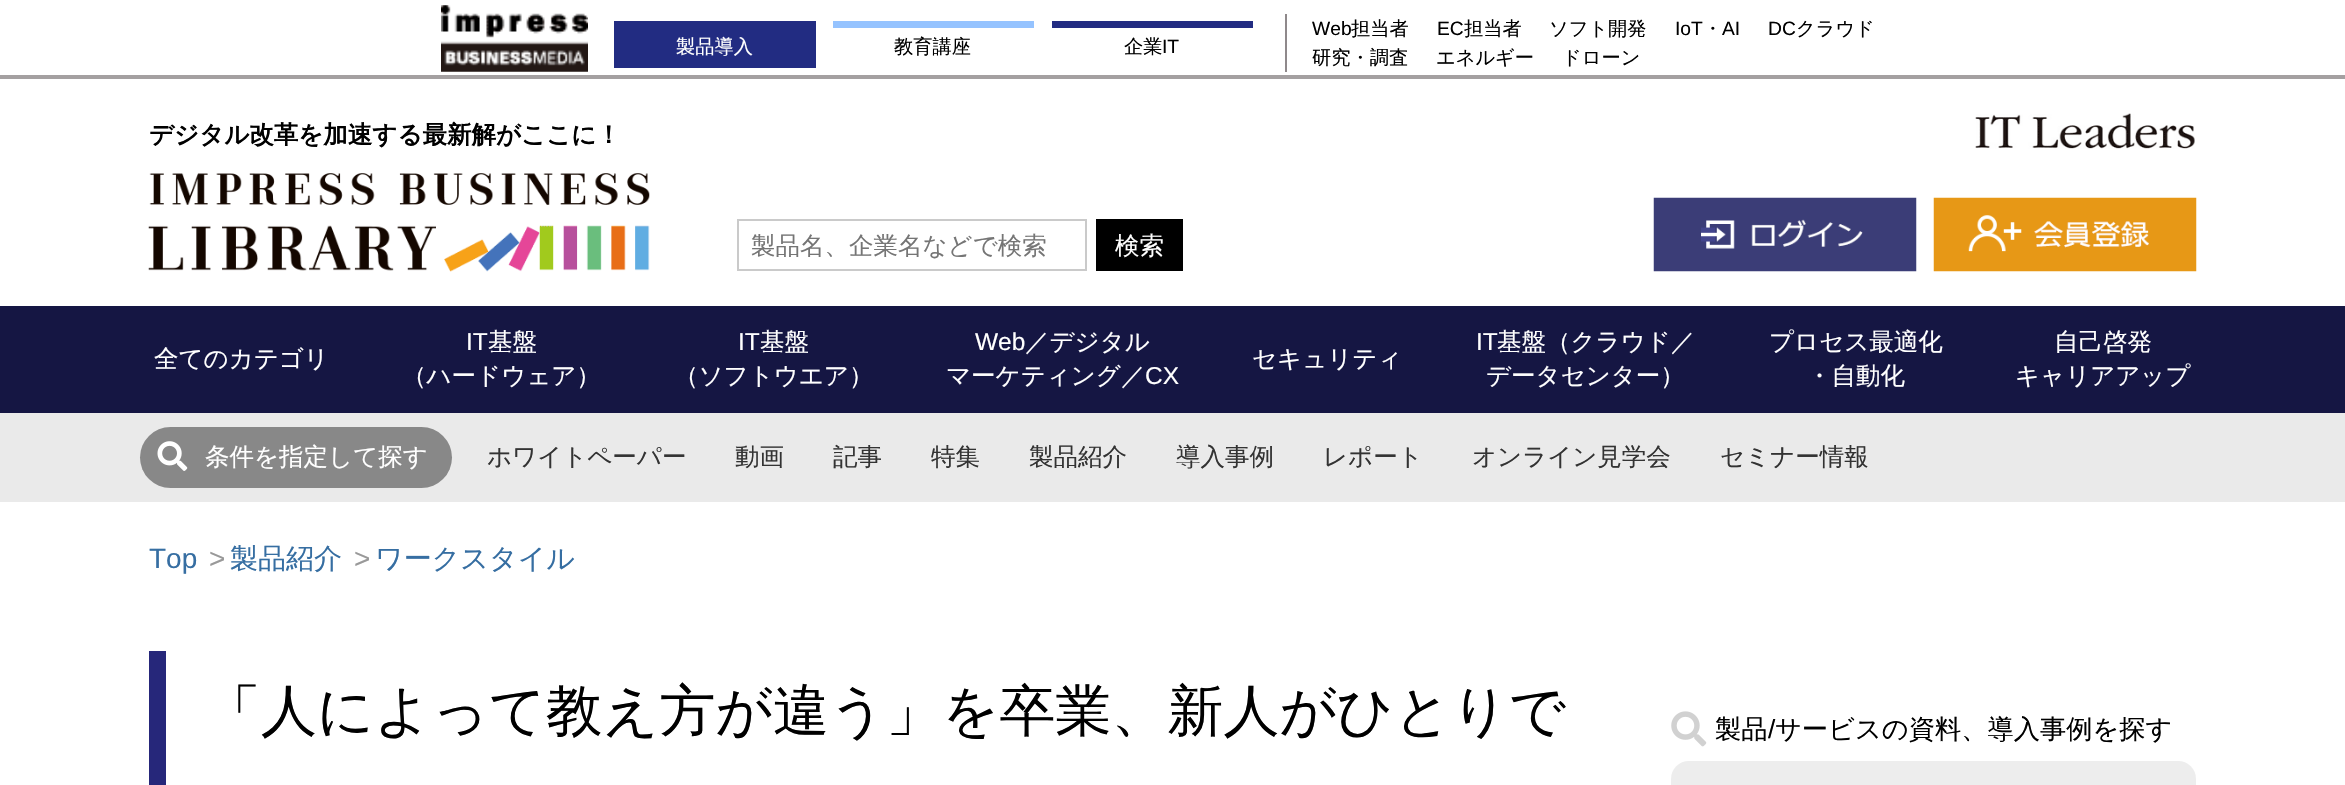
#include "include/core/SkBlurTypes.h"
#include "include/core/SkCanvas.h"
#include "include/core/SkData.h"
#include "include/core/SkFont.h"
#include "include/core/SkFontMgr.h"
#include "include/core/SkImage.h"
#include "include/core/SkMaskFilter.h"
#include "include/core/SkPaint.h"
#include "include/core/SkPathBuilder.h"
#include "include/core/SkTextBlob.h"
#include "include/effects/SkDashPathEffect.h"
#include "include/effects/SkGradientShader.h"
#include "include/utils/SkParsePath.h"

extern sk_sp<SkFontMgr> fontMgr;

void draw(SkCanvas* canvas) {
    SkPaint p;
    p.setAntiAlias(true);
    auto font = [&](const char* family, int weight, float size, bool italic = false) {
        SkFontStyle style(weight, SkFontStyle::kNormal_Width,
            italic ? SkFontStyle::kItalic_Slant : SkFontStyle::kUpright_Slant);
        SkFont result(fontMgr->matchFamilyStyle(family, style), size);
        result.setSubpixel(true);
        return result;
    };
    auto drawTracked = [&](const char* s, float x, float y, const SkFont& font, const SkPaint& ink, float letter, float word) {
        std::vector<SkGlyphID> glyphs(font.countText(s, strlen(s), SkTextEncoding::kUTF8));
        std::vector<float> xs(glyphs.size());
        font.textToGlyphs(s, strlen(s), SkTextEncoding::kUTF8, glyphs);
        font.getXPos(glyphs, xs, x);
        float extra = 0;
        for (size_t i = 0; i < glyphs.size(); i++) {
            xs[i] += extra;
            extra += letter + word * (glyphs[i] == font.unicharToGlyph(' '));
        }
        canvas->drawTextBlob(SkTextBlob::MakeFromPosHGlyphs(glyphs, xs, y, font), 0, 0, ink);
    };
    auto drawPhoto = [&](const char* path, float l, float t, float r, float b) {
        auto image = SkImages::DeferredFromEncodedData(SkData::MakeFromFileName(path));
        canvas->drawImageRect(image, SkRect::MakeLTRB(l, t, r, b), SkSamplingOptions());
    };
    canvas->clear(0xFFFFFFFF);
    p.setColor(0xFFA4A0A1);
    canvas->drawRect(SkRect::MakeLTRB(0, 75, 2345, 79), p);
    drawPhoto("media/1.png", 441, 5, 588, 72);
    p.setColor(0xFF8F898B);
    canvas->drawRect(SkRect::MakeLTRB(1285, 14, 1287, 72), p);
    p.setColor(0xFF222C82);
    canvas->drawRect(SkRect::MakeLTRB(614, 21, 816, 68), p);
    auto font1 = font("WenQuanYi Zen Hei", 500, 19.25f);
    p.setColor(0xFFFFFFFF);
    canvas->drawString("製品導入", 676, 53, font1, p);
    p.setColor(0xFF95C3FF);
    canvas->drawRect(SkRect::MakeLTRB(833, 21, 1034, 28), p);
    p.setColor(0xFF000000);
    canvas->drawString("教育講座", 894, 53, font1, p);
    p.setColor(0xFF222C82);
    canvas->drawRect(SkRect::MakeLTRB(1052, 21, 1253, 28), p);
    p.setColor(0xFF000000);
    canvas->drawString("企業", 1124, 53, font1, p);
    auto font2 = font("Liberation Sans", 400, 19.25f);
    canvas->drawString("IT", 1162, 53, font2, p);
    canvas->drawString("Web", 1312, 35, font2, p);
    canvas->drawString("担当者", 1351, 35, font1, p);
    canvas->drawString("EC", 1437, 35, font2, p);
    canvas->drawString("担当者", 1464, 35, font1, p);
    canvas->drawString("ソフト開発", 1549, 35, font1, p);
    canvas->drawString("IoT", 1675, 35, font2, p);
    canvas->drawString("・", 1703, 35, font1, p);
    canvas->drawString("AI", 1722, 35, font2, p);
    canvas->drawString("DC", 1768, 35, font2, p);
    {
        const struct { const char* s; float x, y; } items[] = {
            {"クラウド", 1796, 35},
            {"研究・調査", 1312, 64},
            {"エネルギー", 1436, 64},
            {"ドローン", 1562, 64},
        };
        for (auto [s, x, y] : items) {
            canvas->drawString(s, x, y, font1, p);
        }
    }
    auto font3 = font("WenQuanYi Zen Hei", 700, 24.5f);
    canvas->drawString("デジタル改革を加速する最新解がここに！", 149, 143, font3, p);
    drawPhoto("media/2.png", 1975, 113, 2195, 149);
    drawPhoto("media/3.png", 148, 173, 650, 272);
    p.setStyle(SkPaint::kStroke_Style);
    p.setStrokeWidth(2);
    p.setColor(0xFFCACACA);
    canvas->drawRect(SkRect::MakeLTRB(738, 220, 1086, 270), p);
    auto font4 = font("WenQuanYi Zen Hei", 500, 24.5f);
    p.setStyle(SkPaint::kFill_Style);
    p.setColor(0xFF757575);
    canvas->drawString("製品名、企業名などで検索", 751, 254, font4, p);
    p.setColor(0xFF000000);
    canvas->drawRect(SkRect::MakeLTRB(1096, 219, 1183, 271), p);
    p.setColor(0xFFFFFFFF);
    canvas->drawString("検索", 1115, 254, font4, p);
    drawPhoto("media/4.png", 1653, 197, 1917, 272);
    drawPhoto("media/5.png", 1933, 197, 2197, 272);
    p.setColor(0xFF151643);
    canvas->drawRect(SkRect::MakeLTRB(0, 306, 2345, 413), p);
    p.setColor(0xFFFFFFFF);
    canvas->drawString("全てのカテゴリ", 154, 367, font4, p);
    auto font5 = font("Liberation Sans", 400, 24.5f);
    canvas->drawString("IT", 466, 350, font5, p);
    canvas->drawString("基盤", 488, 350, font4, p);
    canvas->drawString("（ハードウェア）", 402, 384, font4, p);
    canvas->drawString("IT", 738, 350, font5, p);
    canvas->drawString("基盤", 760, 350, font4, p);
    canvas->drawString("（ソフトウエア）", 674, 384, font4, p);
    canvas->drawString("Web", 975, 350, font5, p);
    canvas->drawString("／デジタル", 1025, 350, font4, p);
    canvas->drawString("マーケティング／", 946, 384, font4, p);
    canvas->drawString("CX", 1145, 384, font5, p);
    canvas->drawString("セキュリティ", 1252, 367, font4, p);
    canvas->drawString("IT", 1476, 350, font5, p);
    {
        const struct { const char* s; float x, y; } items[] = {
            {"基盤（クラウド／", 1497, 350},
            {"データセンター）", 1486, 384},
            {"プロセス最適化", 1769, 350},
            {"・自動化", 1807, 384},
            {"自己啓発", 2054, 350},
            {"キャリアアップ", 2015, 384},
        };
        for (auto [s, x, y] : items) {
            canvas->drawString(s, x, y, font4, p);
        }
    }
    p.setColor(0xFFEAEAEA);
    canvas->drawRect(SkRect::MakeLTRB(0, 413, 2345, 502), p);
    p.setColor(0xFF888888);
    canvas->drawRoundRect(SkRect::MakeLTRB(140, 427, 452, 488), 30.5f, 30.5f, p);
    drawPhoto("media/6.png", 157, 441, 188, 471);
    p.setColor(0xFFFFFFFF);
    canvas->drawString("条件を指定して探す", 205, 465, font4, p);
    p.setColor(0xFF333333);
    {
        const struct { const char* s; float x, y; } items[] = {
            {"ホワイトペーパー", 487, 465},
            {"動画", 735, 465},
            {"記事", 833, 465},
            {"特集", 931, 465},
            {"製品紹介", 1029, 465},
            {"導入事例", 1176, 465},
            {"レポート", 1323, 465},
            {"オンライン見学会", 1472, 465},
            {"セミナー情報", 1720, 465},
        };
        for (auto [s, x, y] : items) {
            canvas->drawString(s, x, y, font4, p);
        }
    }
    auto font6 = font("Liberation Sans", 400, 28);
    p.setColor(0xFF366EA2);
    canvas->drawString("Top", 149, 568, font6, p);
    p.setColor(0xFF999999);
    drawTracked(">", 209, 568, font6, p, -7, 0);
    auto font7 = font("WenQuanYi Zen Hei", 500, 28);
    p.setColor(0xFF366EA2);
    canvas->drawString("製品紹介", 230, 568, font7, p);
    p.setColor(0xFF999999);
    drawTracked(">", 354, 568, font6, p, -7, 0);
    p.setColor(0xFF366EA2);
    canvas->drawString("ワークスタイル", 375, 568, font7, p);
    p.setColor(0xFF26277A);
    canvas->drawRect(SkRect::MakeLTRB(149, 651, 166, 785), p);
    auto font8 = font("WenQuanYi Zen Hei", 500, 56);
    p.setColor(0xFF000000);
    canvas->drawString("「人によって教え方が違う」を卒業、新人がひとりで", 205, 730, font8, p);
    drawPhoto("media/7.png", 1671, 711, 1707, 747);
    auto font9 = font("WenQuanYi Zen Hei", 500, 26.25f);
    canvas->drawString("製品", 1715, 738, font9, p);
    auto font10 = font("Liberation Sans", 400, 26.25f);
    canvas->drawString("/", 1768, 738, font10, p);
    canvas->drawString("サービスの資料、導入事例を探す", 1775, 738, font9, p);
    p.setColor(0xFFEDEDED);
    canvas->drawRoundRect(SkRect::MakeLTRB(1671, 761, 2196, 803), 18, 18, p);
}
